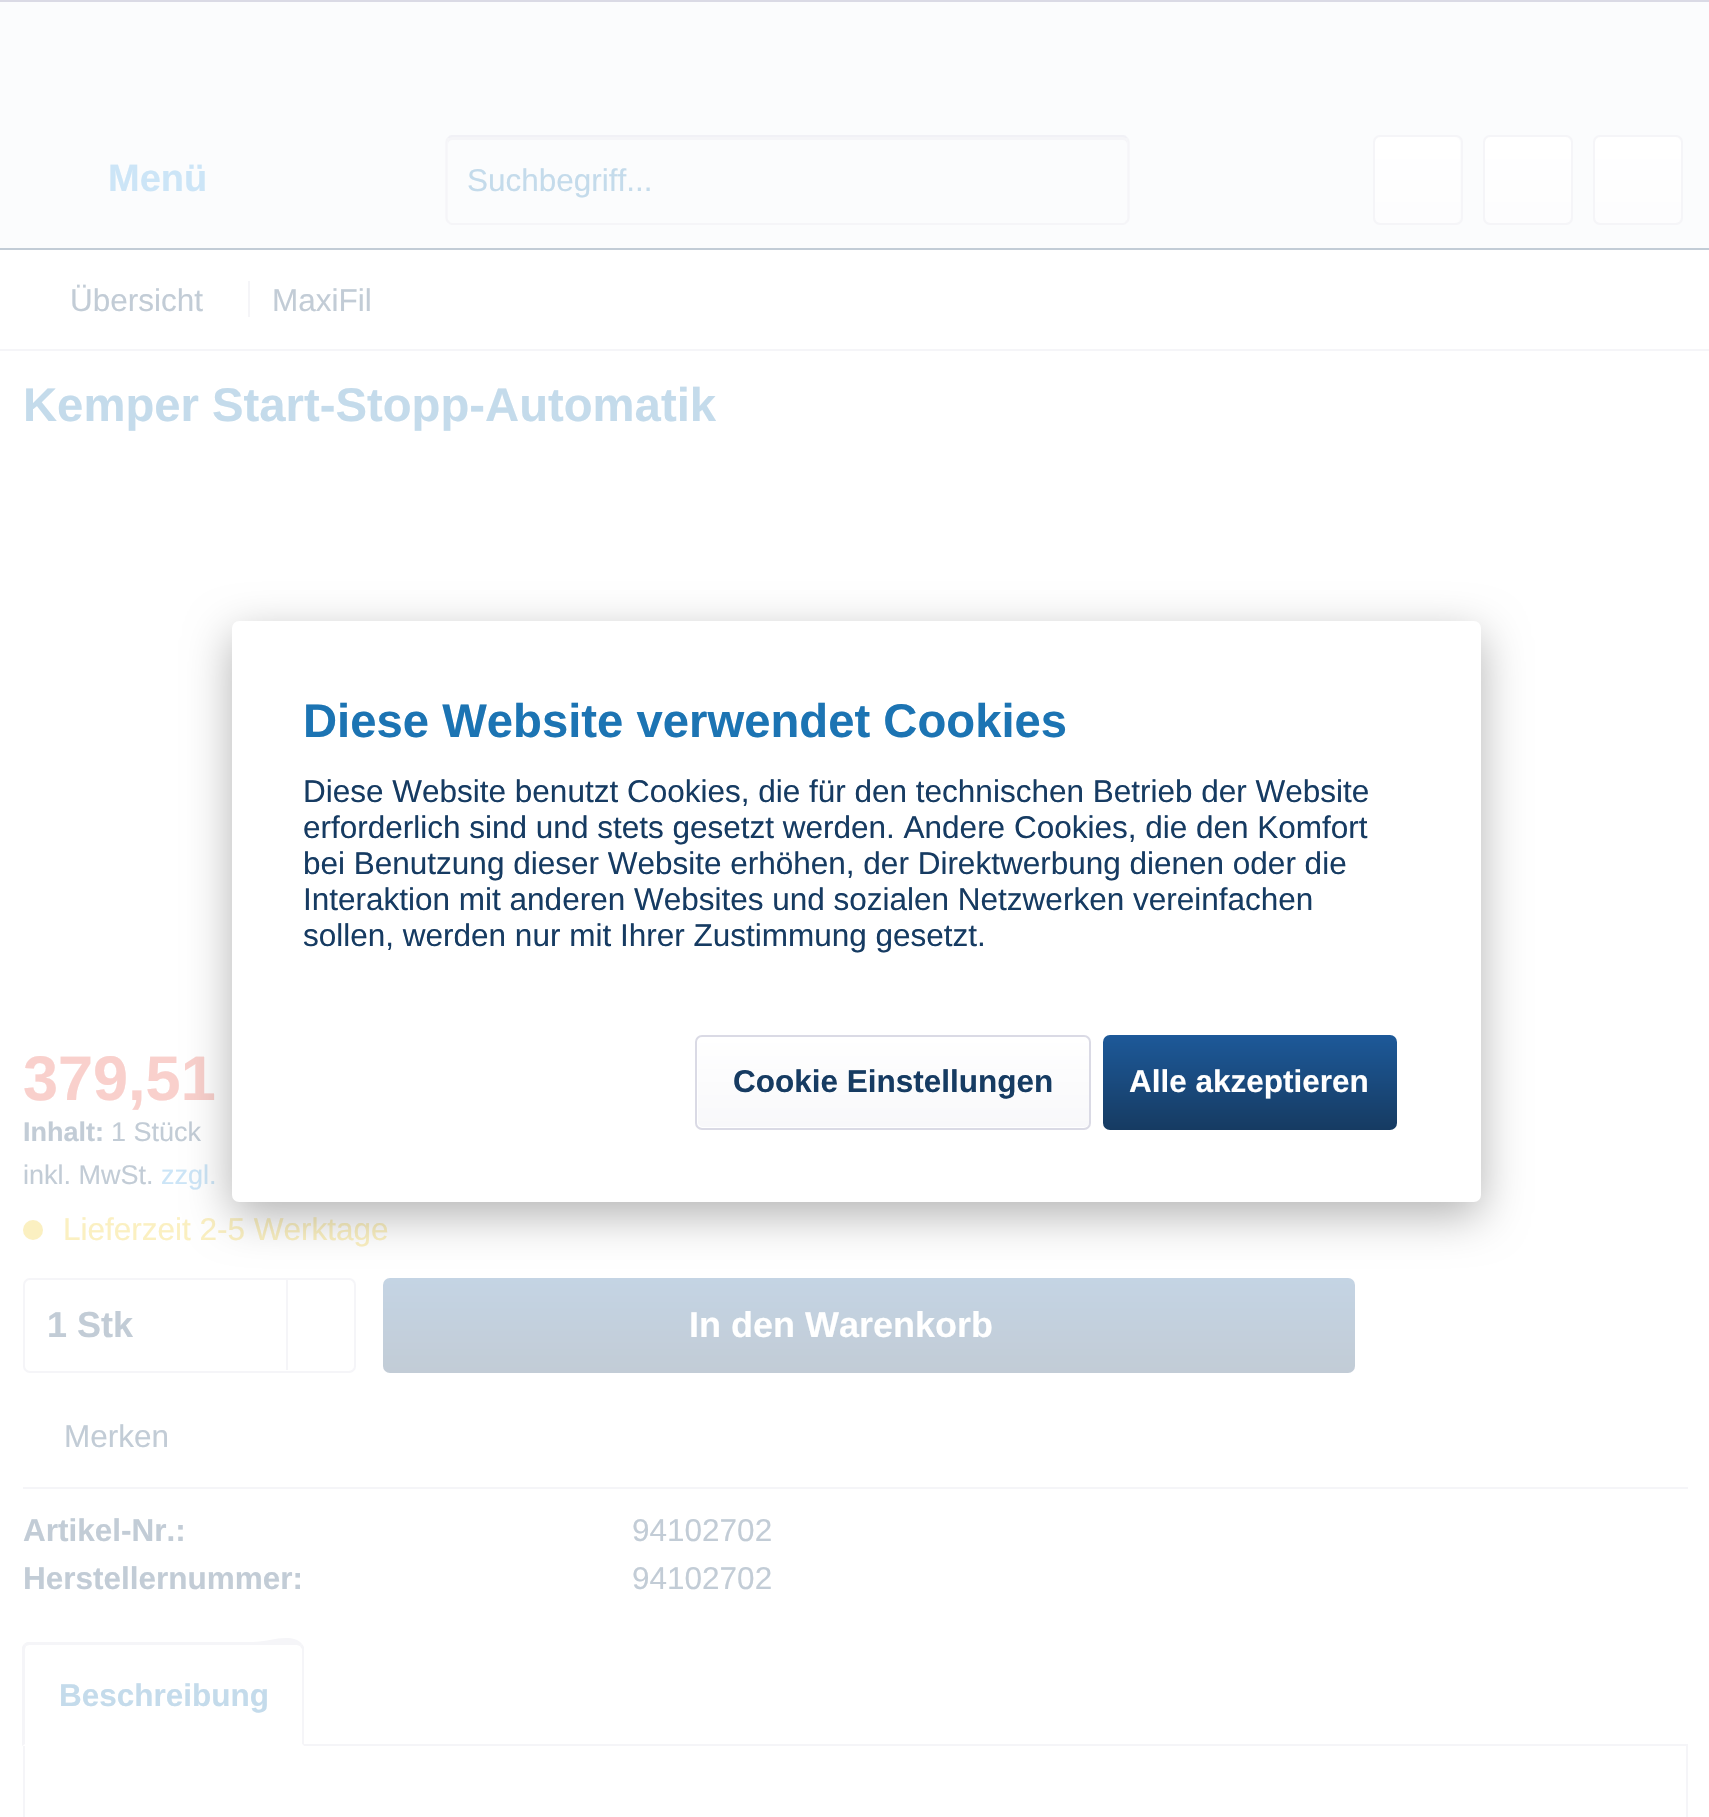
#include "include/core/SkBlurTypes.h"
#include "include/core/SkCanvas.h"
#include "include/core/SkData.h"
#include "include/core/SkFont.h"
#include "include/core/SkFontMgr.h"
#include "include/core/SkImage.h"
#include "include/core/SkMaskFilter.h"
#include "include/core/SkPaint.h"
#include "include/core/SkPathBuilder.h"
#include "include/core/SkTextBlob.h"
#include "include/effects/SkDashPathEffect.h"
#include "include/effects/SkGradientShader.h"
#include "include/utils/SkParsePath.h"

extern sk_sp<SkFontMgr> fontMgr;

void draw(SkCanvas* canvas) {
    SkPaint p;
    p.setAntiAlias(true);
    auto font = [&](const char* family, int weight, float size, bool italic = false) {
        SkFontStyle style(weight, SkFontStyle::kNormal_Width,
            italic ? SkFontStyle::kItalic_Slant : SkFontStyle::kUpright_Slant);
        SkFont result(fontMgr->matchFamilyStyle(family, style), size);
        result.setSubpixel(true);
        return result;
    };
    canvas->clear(0xFFFBFCFD);
    p.setColor(0xFFC2CCD6);
    canvas->drawRect(SkRect::MakeLTRB(0, 248, 1709, 250), p);
    auto font1 = font("Liberation Sans", 700, 38);
    p.setColor(0xFFCCE5F7);
    canvas->drawString("Menü", 108, 191, font1, p);
    p.setColor(0xFFF5F5F8);
    canvas->drawPath(SkPathBuilder().moveTo(452, 140).lineTo(1123, 140).cubicTo(1125, 140, 1127, 142, 1127, 144).lineTo(1127, 142).cubicTo(1127, 139, 1125, 137, 1122, 137).lineTo(453, 137).cubicTo(450, 137, 448, 139, 448, 142).lineTo(448, 144).cubicTo(448, 142, 450, 140, 452, 140).close().detach(), p);
    p.setStyle(SkPaint::kStroke_Style);
    p.setStrokeWidth(2.2f);
    p.setColor(0xFFF1F1F6);
    canvas->drawPath(SkPathBuilder().moveTo(448.5f, 138).cubicTo(449.5f, 136.5f, 451, 136, 452, 136).lineTo(1123, 136).cubicTo(1124, 136, 1125.5f, 136.5f, 1126.5f, 138).detach(), p);
    p.setColor(0xFFF5F5F8);
    canvas->drawPath(SkPathBuilder().moveTo(1126.5f, 138).cubicTo(1128, 139, 1128.5f, 140.5f, 1128.5f, 142).lineTo(1128.5f, 218).cubicTo(1128.5f, 219.5f, 1128, 221, 1126.5f, 222).cubicTo(1125.5f, 223.5f, 1124, 224, 1123, 224).lineTo(452, 224).cubicTo(451, 224, 449.5f, 223.5f, 448.5f, 222).cubicTo(447, 221, 446.5f, 219.5f, 446.5f, 218).lineTo(446.5f, 142).cubicTo(446.5f, 140.5f, 447, 139, 448.5f, 138).detach(), p);
    auto font2 = font("Liberation Sans", 400, 31.5f);
    p.setStyle(SkPaint::kFill_Style);
    p.setColor(0xFFC4DBEB);
    canvas->drawString("Suchbegriff...", 467, 191, font2, p);
    {
        const SkColor colors[] = {0xFFFFFFFF, 0xFFFDFDFE};
        const float stops[] = {0, 1};
        const SkPoint ends[] = {{1418, 137}, {1418, 223}};
        p.setShader(SkGradientShader::MakeLinear(ends, colors, stops, 2, SkTileMode::kClamp));
        p.setAlpha(255);
    }
    canvas->drawRoundRect(SkRect::MakeLTRB(1375, 137, 1460, 223), 5, 5, p);
    p.setStyle(SkPaint::kStroke_Style);
    p.setStrokeWidth(2);
    p.setShader(nullptr);
    p.setColor(0xFFF5F5F8);
    canvas->drawRoundRect(SkRect::MakeLTRB(1374, 136, 1462, 224), 6, 6, p);
    p.setStyle(SkPaint::kFill_Style);
    {
        const SkColor colors[] = {0xFFFFFFFF, 0xFFFDFDFE};
        const float stops[] = {0, 1};
        const SkPoint ends[] = {{1528, 137}, {1528, 223}};
        p.setShader(SkGradientShader::MakeLinear(ends, colors, stops, 2, SkTileMode::kClamp));
        p.setAlpha(255);
    }
    canvas->drawRoundRect(SkRect::MakeLTRB(1485, 137, 1571, 223), 5, 5, p);
    p.setStyle(SkPaint::kStroke_Style);
    p.setShader(nullptr);
    p.setColor(0xFFF5F5F8);
    canvas->drawRoundRect(SkRect::MakeLTRB(1484, 136, 1572, 224), 6, 6, p);
    p.setStyle(SkPaint::kFill_Style);
    {
        const SkColor colors[] = {0xFFFFFFFF, 0xFFFDFDFE};
        const float stops[] = {0, 1};
        const SkPoint ends[] = {{1638, 137}, {1638, 223}};
        p.setShader(SkGradientShader::MakeLinear(ends, colors, stops, 2, SkTileMode::kClamp));
        p.setAlpha(255);
    }
    canvas->drawRoundRect(SkRect::MakeLTRB(1595, 137, 1681, 223), 5, 5, p);
    p.setStyle(SkPaint::kStroke_Style);
    p.setShader(nullptr);
    p.setColor(0xFFF5F5F8);
    canvas->drawRoundRect(SkRect::MakeLTRB(1594, 136, 1682, 224), 6, 6, p);
    p.setStyle(SkPaint::kFill_Style);
    p.setColor(0xFFFFFFFF);
    canvas->drawRect(SkRect::MakeLTRB(0, 250, 1709, 1817), p);
    p.setColor(0xFFF5F5F8);
    canvas->drawRect(SkRect::MakeLTRB(0, 349, 1709, 351), p);
    p.setColor(0xFFC2CCD6);
    canvas->drawString("Übersicht", 70, 311, font2, p);
    p.setColor(0xFFF5F5F8);
    canvas->drawRect(SkRect::MakeLTRB(248, 281, 250, 317), p);
    p.setColor(0xFFC2CCD6);
    canvas->drawString("MaxiFil", 272, 311, font2, p);
    auto font3 = font("Liberation Sans", 700, 47.25f);
    p.setColor(0xFFC4DBEB);
    canvas->drawString("Kemper Start-Stopp-Automatik", 23, 421, font3, p);
    auto font4 = font("Liberation Sans", 700, 63);
    p.setColor(0xFFF9D0CC);
    canvas->drawString("379,51", 23, 1100, font4, p);
    auto font5 = font("Liberation Sans", 700, 27);
    p.setColor(0xFFC2CCD6);
    canvas->drawString("Inhalt:", 23, 1141, font5, p);
    auto font6 = font("Liberation Sans", 400, 27);
    canvas->drawString("1 Stück", 111, 1141, font6, p);
    canvas->drawString("inkl. MwSt.", 23, 1184, font6, p);
    p.setColor(0xFFCCE5F7);
    canvas->drawString("zzgl.", 161, 1184, font6, p);
    p.setColor(0xFFFBF0C1);
    canvas->drawCircle(33, 1230, 10, p);
    canvas->drawString("Lieferzeit 2-5 Werktage", 63, 1240, font2, p);
    p.setStyle(SkPaint::kStroke_Style);
    p.setColor(0xFFF5F5F8);
    canvas->drawRoundRect(SkRect::MakeLTRB(24, 1279, 355, 1372), 6, 6, p);
    auto font7 = font("Liberation Sans", 700, 36);
    p.setStyle(SkPaint::kFill_Style);
    p.setColor(0xFFC2CCD6);
    canvas->drawString("1 Stk", 47, 1337, font7, p);
    p.setColor(0xFFF5F5F8);
    canvas->drawRect(SkRect::MakeLTRB(286, 1280, 288, 1370), p);
    {
        const SkColor colors[] = {0xFFC4D4E4, 0xFFC2CCD6};
        const float stops[] = {0, 1};
        const SkPoint ends[] = {{869, 1278}, {869, 1373}};
        p.setShader(SkGradientShader::MakeLinear(ends, colors, stops, 2, SkTileMode::kClamp));
        p.setAlpha(255);
    }
    canvas->drawRoundRect(SkRect::MakeLTRB(383, 1278, 1355, 1373), 7, 7, p);
    p.setShader(nullptr);
    p.setColor(0xFFFFFFFF);
    canvas->drawString("In den Warenkorb", 689, 1337, font7, p);
    p.setColor(0xFFF5F5F8);
    canvas->drawRect(SkRect::MakeLTRB(23, 1487, 1688, 1489), p);
    p.setColor(0xFFC2CCD6);
    canvas->drawString("Merken", 64, 1447, font2, p);
    auto font8 = font("Liberation Sans", 700, 31.5f);
    canvas->drawString("Artikel-Nr.:", 23, 1541, font8, p);
    canvas->drawString("94102702", 632, 1541, font2, p);
    canvas->drawString("Herstellernummer:", 23, 1589, font8, p);
    canvas->drawString("94102702", 632, 1589, font2, p);
    p.setStyle(SkPaint::kStroke_Style);
    p.setColor(0xFFF5F5F8);
    canvas->drawRect(SkRect::MakeLTRB(24, 1745, 1687, 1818), p);
    p.setStyle(SkPaint::kFill_Style);
    p.setColor(0xFFFFFFFF);
    canvas->drawPath(SkPathBuilder().moveTo(30, 1643).lineTo(297, 1643).cubicTo(301, 1643, 304, 1646, 304, 1650).lineTo(304, 1746).lineTo(23, 1746).lineTo(23, 1650).cubicTo(23, 1646, 26, 1643, 30, 1643).close().detach(), p);
    p.setColor(0xFFF5F5F8);
    canvas->drawPath(SkPathBuilder().moveTo(29, 1645).lineTo(26, 1646).lineTo(24, 1644).lineTo(27, 1642).lineTo(254, 1642).cubicTo(270, 1642, 291, 1632, 302, 1644).lineTo(300, 1646).lineTo(297, 1645).close().detach(), p);
    canvas->drawPath(SkPathBuilder().moveTo(304, 1647).lineTo(304, 1746).lineTo(302, 1744).lineTo(302, 1649).lineTo(300, 1646).lineTo(302, 1644).close().detach(), p);
    p.setColor(0xFFFFFFFF);
    canvas->drawPath(SkPathBuilder().moveTo(304, 1746).lineTo(302, 1744).lineTo(25, 1744).lineTo(22, 1746).close().detach(), p);
    p.setColor(0xFFF5F5F8);
    canvas->drawPath(SkPathBuilder().moveTo(22, 1746).lineTo(22, 1647).lineTo(24, 1644).lineTo(26, 1646).lineTo(25, 1649).lineTo(25, 1744).close().detach(), p);
    p.setColor(0xFFC4DBEB);
    canvas->drawString("Beschreibung", 59, 1706, font8, p);
    p.setColor(0xFFDADAE5);
    canvas->drawRect(SkRect::MakeLTRB(0, 0, 1709, 2), p);
    p.setColor(0x4D000000);
    p.setMaskFilter(SkMaskFilter::MakeBlur(kNormal_SkBlurStyle, 22.5f));
    canvas->drawRoundRect(SkRect::MakeLTRB(232, 635, 1481, 1215), 7, 7, p);
    p.setMaskFilter(nullptr);
    p.setColor(0xFFFFFFFF);
    canvas->drawRoundRect(SkRect::MakeLTRB(232, 621, 1481, 1202), 7, 7, p);
    p.setColor(0xFF1C74B3);
    canvas->drawString("Diese Website verwendet Cookies", 303, 737, font3, p);
    p.setColor(0xFF163B62);
    {
        const struct { const char* s; float x, y; } items[] = {
            {"Diese Website benutzt Cookies, die für den technischen Betrieb der Website", 303, 802},
            {"erforderlich sind und stets gesetzt werden. Andere Cookies, die den Komfort", 303, 838},
            {"bei Benutzung dieser Website erhöhen, der Direktwerbung dienen oder die", 303, 874},
            {"Interaktion mit anderen Websites und sozialen Netzwerken vereinfachen", 303, 910},
            {"sollen, werden nur mit Ihrer Zustimmung gesetzt.", 303, 946},
        };
        for (auto [s, x, y] : items) {
            canvas->drawString(s, x, y, font2, p);
        }
    }
    {
        const SkColor colors[] = {0xFFFFFFFF, 0xFFF8F8FA};
        const float stops[] = {0, 1};
        const SkPoint ends[] = {{893, 1037}, {893, 1127}};
        p.setShader(SkGradientShader::MakeLinear(ends, colors, stops, 2, SkTileMode::kClamp));
        p.setAlpha(255);
    }
    canvas->drawRoundRect(SkRect::MakeLTRB(698, 1037, 1089, 1127), 5, 5, p);
    p.setStyle(SkPaint::kStroke_Style);
    p.setShader(nullptr);
    p.setColor(0xFFDADAE5);
    canvas->drawRoundRect(SkRect::MakeLTRB(696, 1036, 1090, 1129), 6, 6, p);
    p.setStyle(SkPaint::kFill_Style);
    p.setColor(0xFF163B62);
    canvas->drawString("Cookie Einstellungen", 733, 1092, font8, p);
    {
        const SkColor colors[] = {0xFF1D5999, 0xFF163B62};
        const float stops[] = {0, 1};
        const SkPoint ends[] = {{1250, 1035}, {1250, 1130}};
        p.setShader(SkGradientShader::MakeLinear(ends, colors, stops, 2, SkTileMode::kClamp));
        p.setAlpha(255);
    }
    canvas->drawRoundRect(SkRect::MakeLTRB(1103, 1035, 1397, 1130), 7, 7, p);
    p.setShader(nullptr);
    p.setColor(0xFFFFFFFF);
    canvas->drawString("Alle akzeptieren", 1129, 1092, font8, p);
}
